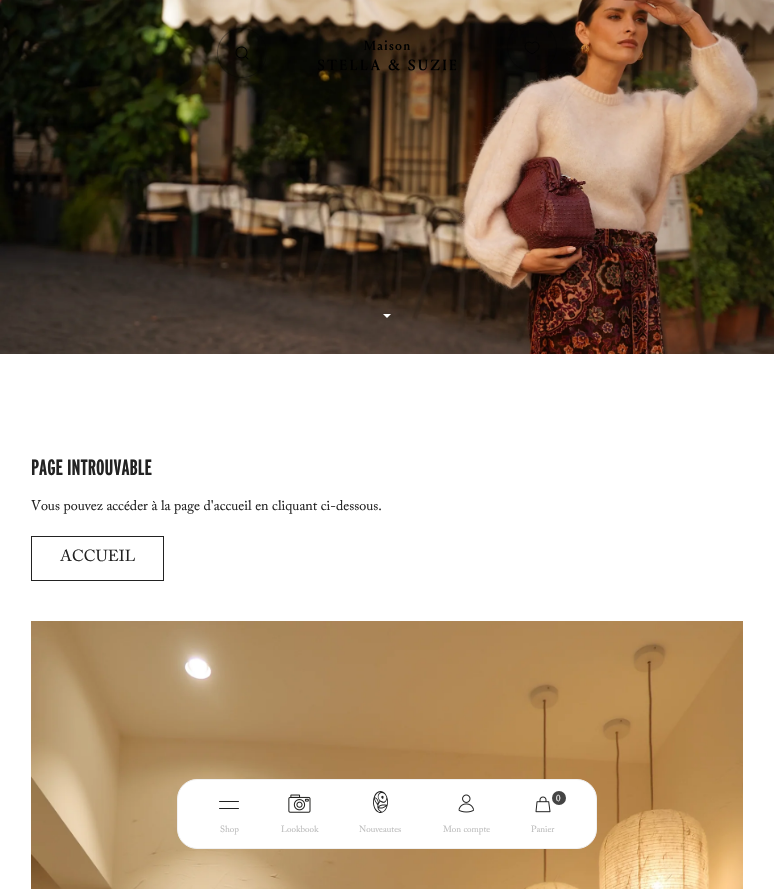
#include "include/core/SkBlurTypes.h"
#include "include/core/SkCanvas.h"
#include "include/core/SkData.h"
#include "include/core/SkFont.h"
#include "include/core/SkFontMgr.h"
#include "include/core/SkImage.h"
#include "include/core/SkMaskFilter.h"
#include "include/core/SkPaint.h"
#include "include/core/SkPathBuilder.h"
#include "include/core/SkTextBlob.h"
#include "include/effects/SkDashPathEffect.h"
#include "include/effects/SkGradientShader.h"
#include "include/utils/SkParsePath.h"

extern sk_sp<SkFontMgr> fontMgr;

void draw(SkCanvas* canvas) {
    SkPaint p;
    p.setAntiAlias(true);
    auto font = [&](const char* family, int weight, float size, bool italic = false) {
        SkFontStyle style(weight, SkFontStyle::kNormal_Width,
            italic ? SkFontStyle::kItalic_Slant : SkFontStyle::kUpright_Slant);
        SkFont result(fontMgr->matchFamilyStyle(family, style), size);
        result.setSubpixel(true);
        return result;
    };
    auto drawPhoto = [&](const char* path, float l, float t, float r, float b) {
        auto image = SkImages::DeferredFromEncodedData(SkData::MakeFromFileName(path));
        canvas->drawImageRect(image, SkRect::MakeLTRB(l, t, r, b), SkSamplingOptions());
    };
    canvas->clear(0xFFFFFFFF);
    drawPhoto("media/1.png", 0, 0, 774, 354);
    p.setColor(0xFFFFFFFF);
    canvas->drawPath(SkPathBuilder().moveTo(383, 314).lineTo(387, 318).lineTo(391, 314).close().detach(), p);
    auto font1 = font("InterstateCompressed", 700, 22);
    p.setColor(0xFF222222);
    canvas->drawString("PAGE INTROUVABLE", 31, 475, font1, p);
    auto font2 = font("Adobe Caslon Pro", 400, 14);
    canvas->drawString("Vous pouvez accéder à la page d'accueil en cliquant ci-dessous.", 31, 510, font2, p);
    p.setStyle(SkPaint::kStroke_Style);
    p.setStrokeWidth(1);
    canvas->drawRect(SkRect::MakeLTRB(31.5f, 536.5f, 163.5f, 580.5f), p);
    auto font3 = font("Adobe Caslon Pro", 400, 16);
    p.setStyle(SkPaint::kFill_Style);
    canvas->drawString("ACCUEIL", 60, 561, font3, p);
    drawPhoto("media/2.png", 31, 621, 743, 889);
    drawPhoto("media/3.png", 217, 28, 266, 78);
    drawPhoto("media/4.png", 318, 40, 456, 71);
    p.setStyle(SkPaint::kStroke_Style);
    p.setColor(0x4D000000);
    canvas->drawCircle(532, 47, 24.5f, p);
    p.setColor(0xFF000000);
    canvas->drawPath(SkPathBuilder().moveTo(529, 42).cubicTo(526.5f, 42, 525, 44, 525, 46).cubicTo(525, 50, 528, 51.5f, 532, 54).cubicTo(534, 53, 536.5f, 51.5f, 538, 49.5f).cubicTo(541.5f, 45, 536, 39, 532, 43.5f).cubicTo(531.5f, 43, 530.5f, 42, 529, 42).close().detach(), p);
    p.setStyle(SkPaint::kFill_Style);
    p.setColor(0xFFFFFFFF);
    canvas->drawRoundRect(SkRect::MakeLTRB(177.5f, 779.5f, 596.5f, 848.5f), 19.5f, 19.5f, p);
    p.setStyle(SkPaint::kStroke_Style);
    p.setColor(0xFFF1F1F1);
    canvas->drawRoundRect(SkRect::MakeLTRB(177.5f, 779.5f, 596.5f, 848.5f), 19.5f, 19.5f, p);
    p.setStyle(SkPaint::kFill_Style);
    p.setColor(0xFF222222);
    canvas->drawRoundRect(SkRect::MakeLTRB(219, 801, 239, 802), 0.5f, 0.5f, p);
    canvas->drawRoundRect(SkRect::MakeLTRB(219, 808, 239, 809), 0.5f, 0.5f, p);
    auto font4 = font("Adobe Caslon Pro", 400, 9);
    p.setColor(0xFFBBBBBB);
    canvas->drawString("Shop", 220, 832, font4, p);
    drawPhoto("media/5.png", 288, 794, 311, 813);
    canvas->drawString("Lookbook", 281, 832, font4, p);
    drawPhoto("media/6.png", 373, 791, 388, 813);
    canvas->drawString("Nouveautes", 359, 832, font4, p);
    drawPhoto("media/7.png", 458, 794, 474, 813);
    canvas->drawString("Mon compte", 443, 832, font4, p);
    drawPhoto("media/8.png", 535, 796, 551, 813);
    p.setColor(0xFF444444);
    canvas->drawCircle(559, 798, 7, p);
    p.setColor(0xFFFFFFFF);
    canvas->drawString("0", 556, 801, font4, p);
    p.setColor(0xFFBBBBBB);
    canvas->drawString("Panier", 531, 832, font4, p);
}
